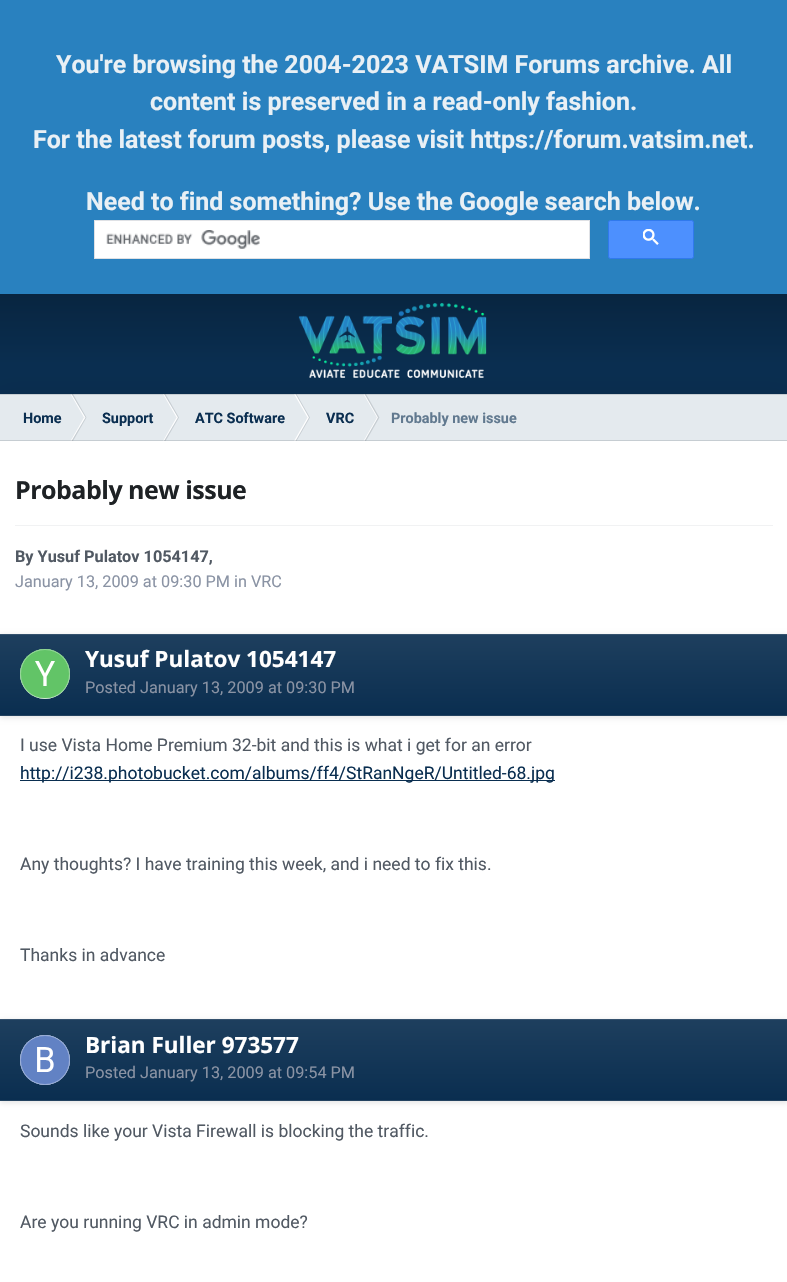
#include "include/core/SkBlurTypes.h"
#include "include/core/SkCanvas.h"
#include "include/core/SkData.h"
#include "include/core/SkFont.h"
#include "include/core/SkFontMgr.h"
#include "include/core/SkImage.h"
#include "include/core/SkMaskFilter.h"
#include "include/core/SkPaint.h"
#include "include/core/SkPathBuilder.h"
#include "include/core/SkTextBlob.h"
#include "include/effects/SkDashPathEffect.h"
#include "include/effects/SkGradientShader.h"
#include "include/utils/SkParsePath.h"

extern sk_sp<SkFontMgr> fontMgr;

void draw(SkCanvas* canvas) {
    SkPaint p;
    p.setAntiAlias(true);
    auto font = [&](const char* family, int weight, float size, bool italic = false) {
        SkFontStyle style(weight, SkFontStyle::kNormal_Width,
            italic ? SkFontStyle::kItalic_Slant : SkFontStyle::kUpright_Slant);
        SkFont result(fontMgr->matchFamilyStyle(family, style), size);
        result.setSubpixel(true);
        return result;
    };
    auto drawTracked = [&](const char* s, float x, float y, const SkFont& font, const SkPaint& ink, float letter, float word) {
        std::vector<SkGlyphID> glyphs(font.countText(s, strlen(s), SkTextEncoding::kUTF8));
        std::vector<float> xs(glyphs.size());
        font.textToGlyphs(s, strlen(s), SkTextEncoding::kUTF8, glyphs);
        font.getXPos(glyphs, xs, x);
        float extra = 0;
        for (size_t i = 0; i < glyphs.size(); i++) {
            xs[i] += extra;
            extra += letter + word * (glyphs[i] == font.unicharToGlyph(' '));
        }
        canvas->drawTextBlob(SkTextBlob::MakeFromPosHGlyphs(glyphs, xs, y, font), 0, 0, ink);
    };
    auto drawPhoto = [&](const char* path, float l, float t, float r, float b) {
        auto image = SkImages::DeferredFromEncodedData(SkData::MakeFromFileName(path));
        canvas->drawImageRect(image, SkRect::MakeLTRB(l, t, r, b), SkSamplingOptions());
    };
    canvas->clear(0xFF2981BF);
    auto font1 = font("Roboto", 700, 25);
    p.setColor(0xFFE9F0F5);
    {
        const struct { const char* s; float x, y; } items[] = {
            {"You're browsing the 2004-2023 VATSIM Forums archive. All", 56, 73},
            {"content is preserved in a read-only fashion.", 150, 110},
            {"For the latest forum posts, please visit https://forum.vatsim.net.", 33, 148},
            {"Need to find something? Use the Google search below.", 86, 210},
        };
        for (auto [s, x, y] : items) {
            canvas->drawString(s, x, y, font1, p);
        }
    }
    p.setColor(0xFFFFFFFF);
    canvas->drawRect(SkRect::MakeLTRB(94.5f, 220.5f, 589.5f, 258.5f), p);
    p.setStyle(SkPaint::kStroke_Style);
    p.setStrokeWidth(1);
    p.setColor(0xFFDFE1E5);
    canvas->drawRect(SkRect::MakeLTRB(94.5f, 220.5f, 589.5f, 258.5f), p);
    drawPhoto("media/1.png", 106, 230, 260, 249);
    p.setStyle(SkPaint::kFill_Style);
    p.setColor(0xFF4D90FE);
    canvas->drawRoundRect(SkRect::MakeLTRB(608.5f, 220.5f, 693.5f, 258.5f), 2, 2, p);
    p.setStyle(SkPaint::kStroke_Style);
    p.setColor(0xFF3079ED);
    canvas->drawRoundRect(SkRect::MakeLTRB(608.5f, 220.5f, 693.5f, 258.5f), 2, 2, p);
    drawPhoto("media/2.png", 643, 229, 659, 245);
    p.setStyle(SkPaint::kFill_Style);
    {
        const SkColor colors[] = {0xFF082540, 0xFF0A2E50};
        const float stops[] = {0, 0.7f};
        const SkPoint ends[] = {{394, 294}, {394, 394}};
        p.setShader(SkGradientShader::MakeLinear(ends, colors, stops, 2, SkTileMode::kClamp));
        p.setAlpha(255);
    }
    canvas->drawRect(SkRect::MakeLTRB(0, 294, 787, 394), p);
    drawPhoto("media/3.png", 298, 303, 487, 378);
    p.setShader(nullptr);
    p.setColor(0x0F000000);
    p.setMaskFilter(SkMaskFilter::MakeBlur(kNormal_SkBlurStyle, 12.5f));
    canvas->drawRoundRect(SkRect::MakeLTRB(0, 394, 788, 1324), 4, 4, p);
    p.setMaskFilter(nullptr);
    p.setColor(0xFFFFFFFF);
    canvas->drawRect(SkRect::MakeLTRB(0, 441, 787, 1282), p);
    p.setColor(0xFFE4EAEE);
    canvas->drawRect(SkRect::MakeLTRB(0, 394, 787, 441), p);
    p.setColor(0xFFFFFFFF);
    canvas->drawPath(SkPathBuilder().moveTo(70.5f, 394).lineTo(71.5f, 394).lineTo(85.5f, 417.5f).lineTo(84, 417.5f).close().detach(), p);
    p.setColor(0x33515963);
    canvas->drawPath(SkPathBuilder().moveTo(71.5f, 394).lineTo(73, 394).lineTo(86.5f, 417.5f).lineTo(85.5f, 417.5f).close().detach(), p);
    p.setColor(0xFFFFFFFF);
    canvas->drawPath(SkPathBuilder().moveTo(163, 394).lineTo(164, 394).lineTo(178, 417.5f).lineTo(176.5f, 417.5f).close().detach(), p);
    p.setColor(0x33515963);
    canvas->drawPath(SkPathBuilder().moveTo(164, 394).lineTo(165.5f, 394).lineTo(179, 417.5f).lineTo(178, 417.5f).close().detach(), p);
    p.setColor(0xFFFFFFFF);
    canvas->drawPath(SkPathBuilder().moveTo(294, 394).lineTo(295.5f, 394).lineTo(309, 417.5f).lineTo(307.5f, 417.5f).close().detach(), p);
    p.setColor(0x33515963);
    canvas->drawPath(SkPathBuilder().moveTo(295.5f, 394).lineTo(296.5f, 394).lineTo(310, 417.5f).lineTo(309, 417.5f).close().detach(), p);
    p.setColor(0xFFFFFFFF);
    canvas->drawPath(SkPathBuilder().moveTo(363.5f, 394).lineTo(364.5f, 394).lineTo(378, 417.5f).lineTo(377, 417.5f).close().detach(), p);
    p.setColor(0x33515963);
    canvas->drawPath(SkPathBuilder().moveTo(364.5f, 394).lineTo(366, 394).lineTo(379.5f, 417.5f).lineTo(378, 417.5f).close().detach(), p);
    canvas->drawRect(SkRect::MakeLTRB(0, 394, 787, 395), p);
    p.setColor(0xFFFFFFFF);
    canvas->drawPath(SkPathBuilder().moveTo(70.5f, 441).lineTo(71.5f, 441).lineTo(85.5f, 417.5f).lineTo(84, 417.5f).close().detach(), p);
    p.setColor(0x33515963);
    canvas->drawPath(SkPathBuilder().moveTo(71.5f, 441).lineTo(73, 441).lineTo(86.5f, 417.5f).lineTo(85.5f, 417.5f).close().detach(), p);
    p.setColor(0xFFFFFFFF);
    canvas->drawPath(SkPathBuilder().moveTo(163, 441).lineTo(164, 441).lineTo(178, 417.5f).lineTo(176.5f, 417.5f).close().detach(), p);
    p.setColor(0x33515963);
    canvas->drawPath(SkPathBuilder().moveTo(164, 441).lineTo(165.5f, 441).lineTo(179, 417.5f).lineTo(178, 417.5f).close().detach(), p);
    p.setColor(0xFFFFFFFF);
    canvas->drawPath(SkPathBuilder().moveTo(294, 441).lineTo(295.5f, 441).lineTo(309, 417.5f).lineTo(307.5f, 417.5f).close().detach(), p);
    p.setColor(0x33515963);
    canvas->drawPath(SkPathBuilder().moveTo(295.5f, 441).lineTo(296.5f, 441).lineTo(310, 417.5f).lineTo(309, 417.5f).close().detach(), p);
    p.setColor(0xFFFFFFFF);
    canvas->drawPath(SkPathBuilder().moveTo(363.5f, 441).lineTo(364.5f, 441).lineTo(378, 417.5f).lineTo(377, 417.5f).close().detach(), p);
    p.setColor(0x33515963);
    canvas->drawPath(SkPathBuilder().moveTo(364.5f, 441).lineTo(366, 441).lineTo(379.5f, 417.5f).lineTo(378, 417.5f).close().detach(), p);
    canvas->drawRect(SkRect::MakeLTRB(0, 440, 787, 441), p);
    auto font2 = font("Roboto", 700, 14.4f);
    p.setColor(0xFF0A2E50);
    {
        const struct { const char* s; float x, y; } items[] = {
            {"Home", 23, 423},
            {"Support", 102, 423},
            {"ATC Software", 195, 423},
            {"VRC", 326, 423},
        };
        for (auto [s, x, y] : items) {
            canvas->drawString(s, x, y, font2, p);
        }
    }
    p.setColor(0xFF61798F);
    canvas->drawString("Probably new issue", 391, 423, font2, p);
    auto font3 = font("Open Sans", 700, 25);
    p.setColor(0xFF1E2225);
    drawTracked("Probably new issue", 15, 499, font3, p, -0.5f, 0);
    p.setColor(0xFFF1F2F3);
    canvas->drawRect(SkRect::MakeLTRB(15, 525, 773, 526), p);
    auto font4 = font("Roboto", 700, 16.25f);
    p.setColor(0xFF515963);
    canvas->drawString("By Yusuf Pulatov 1054147,", 15, 562, font4, p);
    auto font5 = font("Roboto", 400, 16.25f);
    p.setColor(0xFF8A93A4);
    canvas->drawString("January 13, 2009 at 09:30 PM in VRC", 15, 587, font5, p);
    p.setColor(0x1A000000);
    p.setMaskFilter(SkMaskFilter::MakeBlur(kNormal_SkBlurStyle, 2.5f));
    canvas->drawRect(SkRect::MakeLTRB(0, 635, 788, 718), p);
    p.setMaskFilter(nullptr);
    {
        const SkColor colors[] = {0xFF1E3F5E, 0xFF0A2E50};
        const float stops[] = {0, 1};
        const SkPoint ends[] = {{394, 634}, {394, 715}};
        p.setShader(SkGradientShader::MakeLinear(ends, colors, stops, 2, SkTileMode::kClamp));
        p.setAlpha(255);
    }
    canvas->drawRect(SkRect::MakeLTRB(0, 635, 787, 715), p);
    p.setShader(nullptr);
    p.setColor(0xFF35526E);
    canvas->drawRect(SkRect::MakeLTRB(0, 634, 787, 635), p);
    p.setColor(0xFF23425F);
    canvas->drawRect(SkRect::MakeLTRB(0, 715, 787, 716), p);
    p.setColor(0xFFFFFFFF);
    canvas->drawCircle(45, 674, 25, p);
    drawPhoto("media/4.png", 20, 649, 70, 699);
    p.setStyle(SkPaint::kStroke_Style);
    p.setColor(0x4DFFFFFF);
    canvas->drawCircle(45, 674, 24.5f, p);
    auto font6 = font("Open Sans", 700, 22.5f);
    p.setStyle(SkPaint::kFill_Style);
    p.setColor(0xFFFFFFFF);
    canvas->drawString("Yusuf Pulatov 1054147", 85, 667, font6, p);
    p.setColor(0xFF8A93A4);
    canvas->drawString("Posted January 13, 2009 at 09:30 PM", 85, 693, font5, p);
    auto font7 = font("Roboto", 400, 17.5f);
    p.setColor(0xFF515963);
    canvas->drawString("I use Vista Home Premium 32-bit and this is what i get for an error", 20, 751, font7, p);
    p.setColor(0xFF0A2E50);
    canvas->drawRect(SkRect::MakeLTRB(20, 780, 555, 781), p);
    canvas->drawString("http://i238.photobucket.com/albums/ff4/StRanNgeR/Untitled-68.jpg", 20, 779, font7, p);
    p.setColor(0xFF515963);
    canvas->drawString("Any thoughts? I have training this week, and i need to fix this.", 20, 870, font7, p);
    canvas->drawString("Thanks in advance", 20, 961, font7, p);
    p.setColor(0x1A000000);
    p.setMaskFilter(SkMaskFilter::MakeBlur(kNormal_SkBlurStyle, 2.5f));
    canvas->drawRect(SkRect::MakeLTRB(0, 1020, 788, 1103), p);
    p.setMaskFilter(nullptr);
    {
        const SkColor colors[] = {0xFF1E3F5E, 0xFF0A2E50};
        const float stops[] = {0, 1};
        const SkPoint ends[] = {{394, 1019}, {394, 1100}};
        p.setShader(SkGradientShader::MakeLinear(ends, colors, stops, 2, SkTileMode::kClamp));
        p.setAlpha(255);
    }
    canvas->drawRect(SkRect::MakeLTRB(0, 1020, 787, 1100), p);
    p.setShader(nullptr);
    p.setColor(0xFF35526E);
    canvas->drawRect(SkRect::MakeLTRB(0, 1019, 787, 1020), p);
    p.setColor(0xFF23425F);
    canvas->drawRect(SkRect::MakeLTRB(0, 1100, 787, 1101), p);
    p.setColor(0xFFFFFFFF);
    canvas->drawCircle(45, 1060, 25, p);
    drawPhoto("media/5.png", 20, 1035, 70, 1085);
    p.setStyle(SkPaint::kStroke_Style);
    p.setColor(0x4DFFFFFF);
    canvas->drawCircle(45, 1060, 24.5f, p);
    p.setStyle(SkPaint::kFill_Style);
    p.setColor(0xFFFFFFFF);
    canvas->drawString("Brian Fuller 973577", 85, 1053, font6, p);
    p.setColor(0xFF8A93A4);
    canvas->drawString("Posted January 13, 2009 at 09:54 PM", 85, 1078, font5, p);
    p.setColor(0xFF515963);
    canvas->drawString("Sounds like your Vista Firewall is blocking the traffic.", 20, 1137, font7, p);
    canvas->drawString("Are you running VRC in admin mode?", 20, 1228, font7, p);
}
